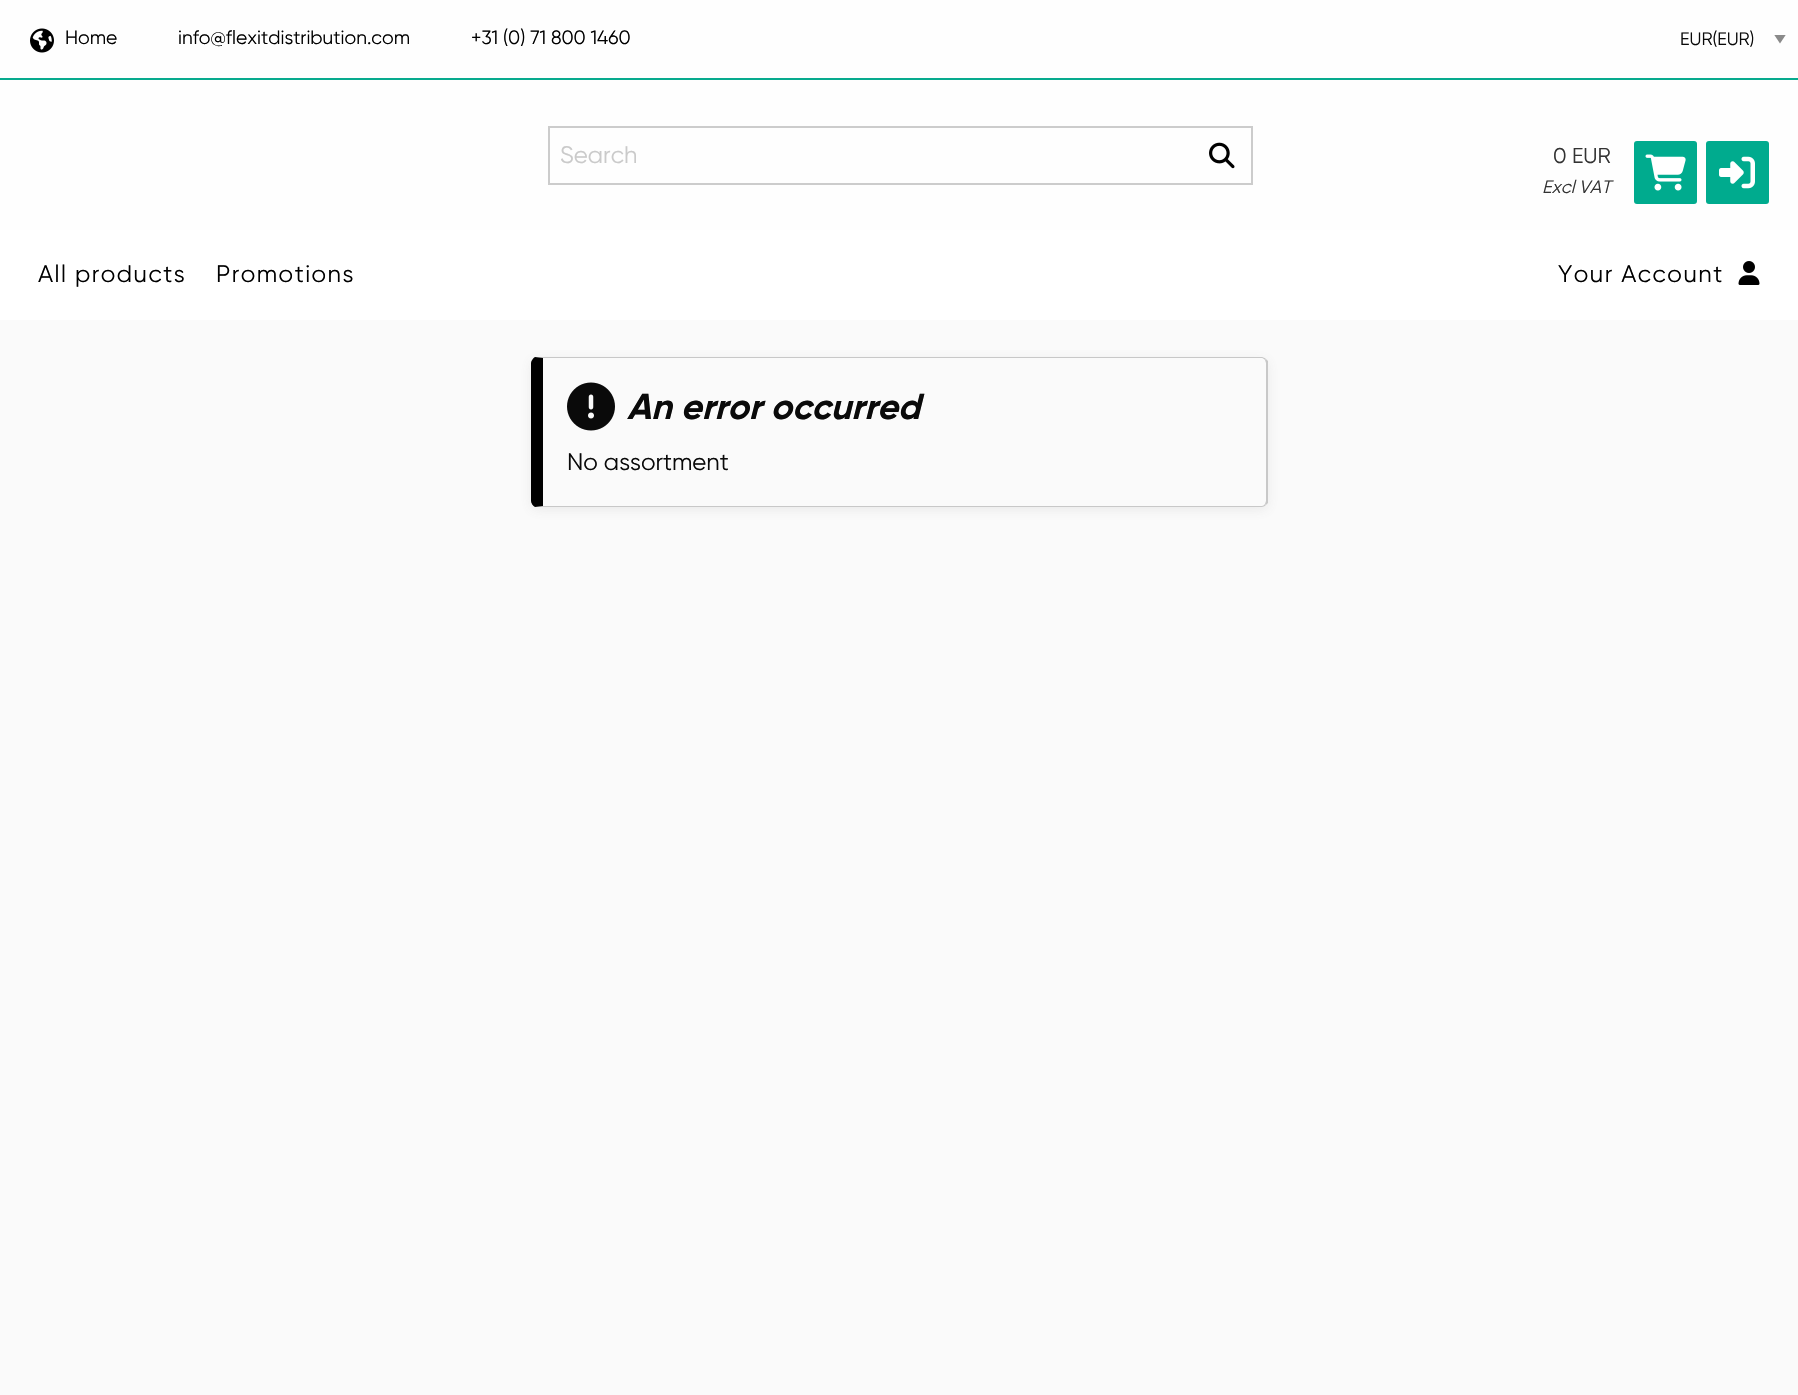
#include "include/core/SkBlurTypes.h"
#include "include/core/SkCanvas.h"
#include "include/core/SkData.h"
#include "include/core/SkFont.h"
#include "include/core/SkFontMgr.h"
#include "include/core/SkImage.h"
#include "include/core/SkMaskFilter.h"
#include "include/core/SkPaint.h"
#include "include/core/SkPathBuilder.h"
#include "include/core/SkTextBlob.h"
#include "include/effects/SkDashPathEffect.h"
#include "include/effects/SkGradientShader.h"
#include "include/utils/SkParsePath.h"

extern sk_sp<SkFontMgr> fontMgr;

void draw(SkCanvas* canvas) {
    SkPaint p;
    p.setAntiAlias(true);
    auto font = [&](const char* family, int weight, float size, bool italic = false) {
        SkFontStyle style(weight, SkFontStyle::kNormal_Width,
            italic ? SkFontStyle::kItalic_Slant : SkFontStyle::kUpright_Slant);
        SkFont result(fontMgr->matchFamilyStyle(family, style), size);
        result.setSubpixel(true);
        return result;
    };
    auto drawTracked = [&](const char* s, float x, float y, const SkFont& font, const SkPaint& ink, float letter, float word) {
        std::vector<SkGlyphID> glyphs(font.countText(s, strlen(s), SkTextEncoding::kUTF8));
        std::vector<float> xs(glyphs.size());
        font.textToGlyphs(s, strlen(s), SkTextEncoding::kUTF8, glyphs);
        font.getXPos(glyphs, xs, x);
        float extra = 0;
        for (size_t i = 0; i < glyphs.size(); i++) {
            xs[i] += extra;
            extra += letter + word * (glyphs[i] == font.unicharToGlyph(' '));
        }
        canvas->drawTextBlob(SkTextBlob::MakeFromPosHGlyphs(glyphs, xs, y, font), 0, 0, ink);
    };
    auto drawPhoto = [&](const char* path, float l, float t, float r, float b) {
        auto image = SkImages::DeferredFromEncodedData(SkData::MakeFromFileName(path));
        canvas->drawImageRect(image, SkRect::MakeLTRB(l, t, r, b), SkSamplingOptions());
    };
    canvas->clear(0xFFFAFAFA);
    p.setColor(0xFFFEFEFE);
    canvas->drawRect(SkRect::MakeLTRB(0, 0, 1798, 230), p);
    p.setColor(0xFF07AA8E);
    canvas->drawRect(SkRect::MakeLTRB(0, 78, 1798, 80), p);
    drawPhoto("media/1.png", 30, 28, 54, 53);
    auto font1 = font("Gilroy", 400, 19.25f);
    p.setColor(0xFF000000);
    {
        const struct { const char* s; float x, y; } items[] = {
            {"Home", 65, 44},
            {"info@flexitdistribution.com", 178, 44},
            {"+31 (0) 71 800 1460", 471, 44},
        };
        for (auto [s, x, y] : items) {
            canvas->drawString(s, x, y, font1, p);
        }
    }
    canvas->save();
    canvas->clipRect(SkRect::MakeLTRB(1773, 35, 1787, 44));
    p.setColor(0xFF8A8A8A);
    canvas->drawPath(SkPathBuilder().moveTo(1774, 34.5f).lineTo(1786, 34.5f).lineTo(1780, 43.5f).close().detach(), p);
    canvas->restore();
    auto font2 = font("Gilroy", 400, 18);
    p.setColor(0xFF0A0A0A);
    canvas->drawString("EUR(EUR)", 1680, 45, font2, p);
    p.setStyle(SkPaint::kStroke_Style);
    p.setStrokeWidth(2);
    p.setColor(0xFFCCCCCC);
    canvas->drawRect(SkRect::MakeLTRB(549, 127, 1252, 184), p);
    auto font3 = font("Gilroy", 400, 24);
    p.setStyle(SkPaint::kFill_Style);
    p.setColor(0xFFCACACA);
    canvas->drawString("Search", 560, 163, font3, p);
    drawPhoto("media/2.png", 1209, 142, 1235, 169);
    auto font4 = font("Gilroy", 400, 21.5f);
    p.setColor(0xFF333333);
    canvas->drawString("0 EUR", 1553, 163, font4, p);
    auto font5 = font("Gilroy", 400, 18, true);
    canvas->drawString("Excl VAT", 1542, 193, font5, p);
    p.setColor(0xFF00AB8E);
    canvas->drawRoundRect(SkRect::MakeLTRB(1634, 141, 1697, 204), 3, 3, p);
    drawPhoto("media/3.png", 1645, 154, 1686, 191);
    canvas->drawRoundRect(SkRect::MakeLTRB(1706, 141, 1769, 204), 3, 3, p);
    drawPhoto("media/4.png", 1719, 156, 1755, 189);
    p.setColor(0xFFFFFFFF);
    canvas->drawRect(SkRect::MakeLTRB(0, 230, 1798, 320), p);
    p.setColor(0xFF000000);
    {
        const struct { const char* s; float x, y; } items[] = {
            {"All products", 38, 282},
            {"Promotions", 216, 282},
            {"Your Account", 1558, 282},
        };
        for (auto [s, x, y] : items) {
            drawTracked(s, x, y, font3, p, 1.5f, 0);
        }
    }
    drawPhoto("media/5.png", 1738, 261, 1760, 285);
    canvas->save();
    canvas->clipPath(SkPathBuilder(SkPathFillType::kEvenOdd).moveTo(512, 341).lineTo(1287, 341).lineTo(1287, 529).lineTo(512, 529).close().moveTo(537, 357).lineTo(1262, 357).cubicTo(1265.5f, 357, 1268, 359.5f, 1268, 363).lineTo(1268, 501).cubicTo(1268, 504.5f, 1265.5f, 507, 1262, 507).lineTo(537, 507).cubicTo(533.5f, 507, 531, 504.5f, 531, 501).lineTo(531, 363).cubicTo(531, 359.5f, 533.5f, 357, 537, 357).close().detach(), true);
    p.setColor(0x1A636363);
    p.setMaskFilter(SkMaskFilter::MakeBlur(kNormal_SkBlurStyle, 6));
    canvas->drawRoundRect(SkRect::MakeLTRB(531, 360, 1268, 510), 6, 6, p);
    p.setMaskFilter(nullptr);
    canvas->restore();
    p.setColor(0xFFC8C8C8);
    canvas->drawPath(SkPathBuilder().moveTo(537, 357).lineTo(535, 357).lineTo(543, 358).lineTo(1262, 358).cubicTo(1263, 358, 1264, 359, 1265, 360).lineTo(1266, 359).cubicTo(1265, 358, 1263, 357, 1262, 357).close().detach(), p);
    canvas->drawPath(SkPathBuilder().moveTo(1268, 503).lineTo(1266, 505).lineTo(1265, 504).lineTo(1266, 501).lineTo(1266, 363).lineTo(1265, 360).lineTo(1266, 359).lineTo(1268, 361).close().detach(), p);
    canvas->drawPath(SkPathBuilder().moveTo(537, 507).lineTo(1262, 507).cubicTo(1263, 507, 1265, 506, 1266, 505).lineTo(1265, 504).cubicTo(1264, 505, 1263, 506, 1262, 506).lineTo(543, 506).lineTo(535, 507).close().detach(), p);
    p.setColor(0xFF000000);
    canvas->drawPath(SkPathBuilder().moveTo(531, 363).lineTo(531, 501).cubicTo(531, 503, 533, 506, 535, 507).lineTo(543, 506).lineTo(543, 358).lineTo(535, 357).cubicTo(533, 358, 531, 361, 531, 363).close().detach(), p);
    drawPhoto("media/6.png", 567, 382, 615, 431);
    auto font6 = font("Gilroy", 700, 36, true);
    p.setColor(0xFF0A0A0A);
    canvas->drawString("An error occurred", 627, 419, font6, p);
    canvas->drawString("No assortment", 567, 470, font3, p);
}
